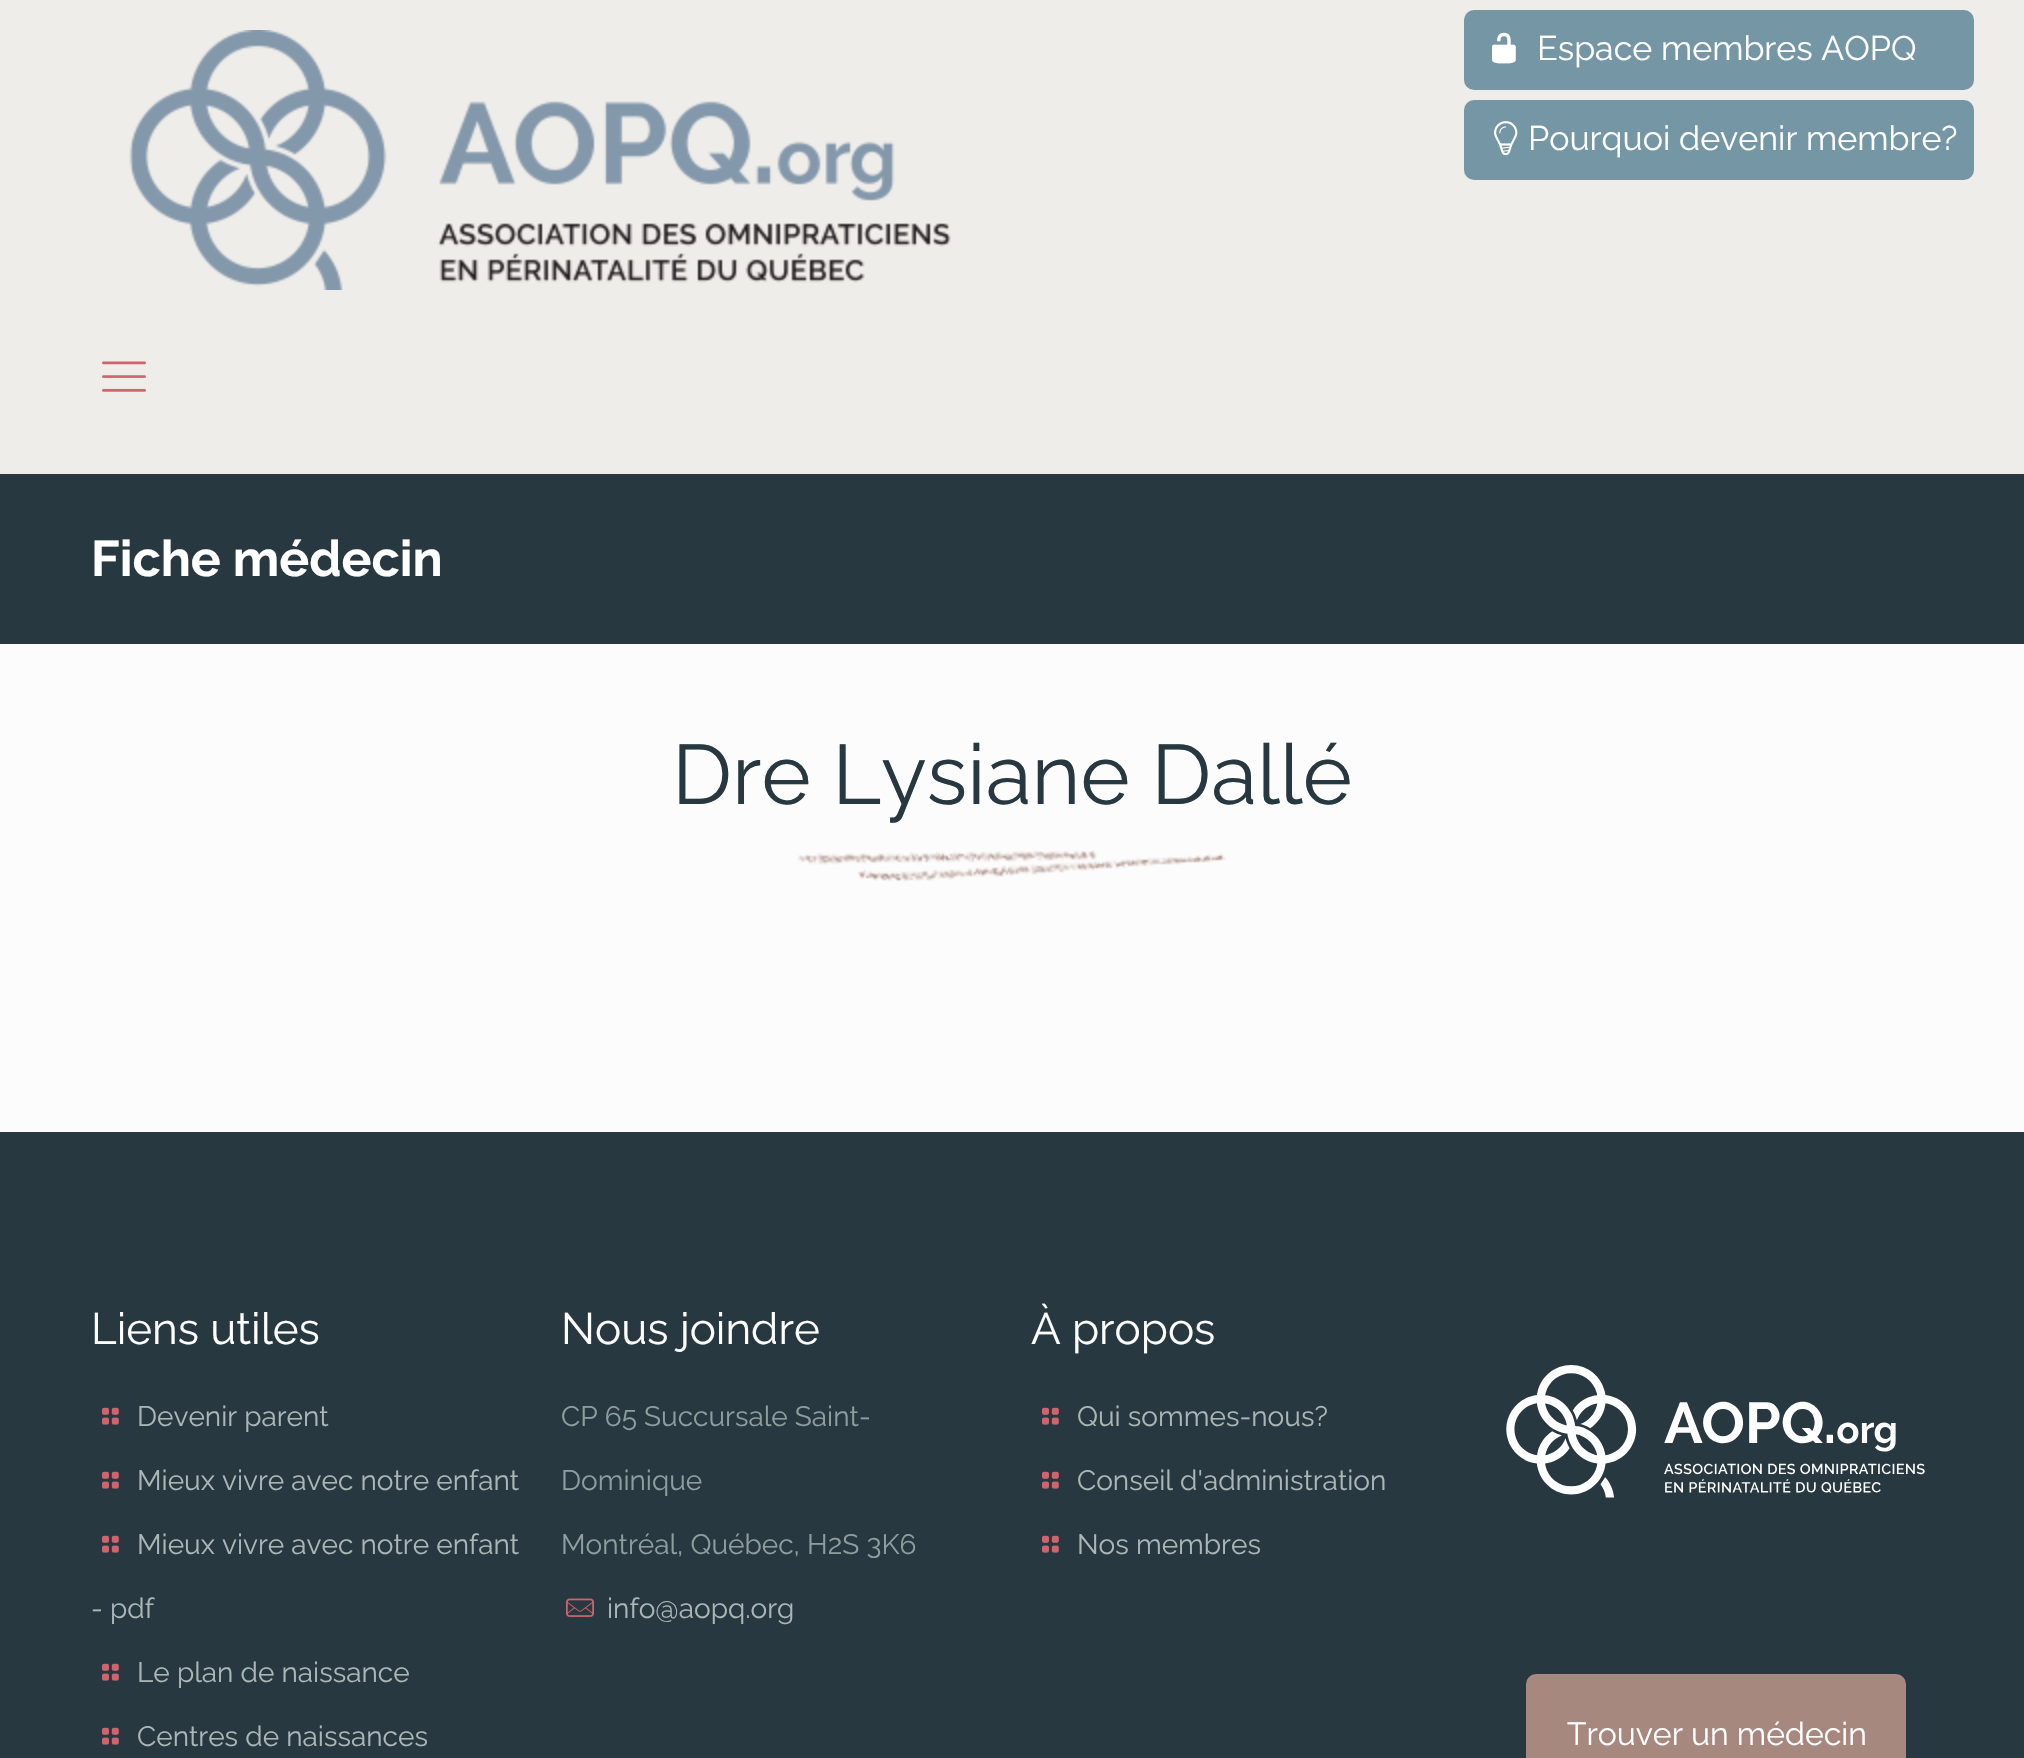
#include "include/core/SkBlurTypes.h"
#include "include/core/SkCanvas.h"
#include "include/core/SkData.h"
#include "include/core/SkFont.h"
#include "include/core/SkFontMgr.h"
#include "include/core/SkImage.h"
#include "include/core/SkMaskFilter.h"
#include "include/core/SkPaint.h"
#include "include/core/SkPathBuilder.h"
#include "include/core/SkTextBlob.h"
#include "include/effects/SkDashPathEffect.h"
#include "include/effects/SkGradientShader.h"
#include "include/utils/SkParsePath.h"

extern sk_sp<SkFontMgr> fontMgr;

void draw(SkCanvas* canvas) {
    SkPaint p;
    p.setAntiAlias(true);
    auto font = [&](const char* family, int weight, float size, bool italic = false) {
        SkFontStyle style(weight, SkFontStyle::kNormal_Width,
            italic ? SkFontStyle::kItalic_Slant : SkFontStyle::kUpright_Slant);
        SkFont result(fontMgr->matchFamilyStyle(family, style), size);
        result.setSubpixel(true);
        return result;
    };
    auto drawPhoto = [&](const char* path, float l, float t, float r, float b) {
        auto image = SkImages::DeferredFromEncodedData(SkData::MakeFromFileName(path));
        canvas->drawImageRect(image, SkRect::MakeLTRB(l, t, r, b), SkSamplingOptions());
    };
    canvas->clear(0xFFFCFCFC);
    p.setColor(0xFFEFEDE9);
    canvas->drawRect(SkRect::MakeLTRB(0, 0, 2024, 474), p);
    drawPhoto("media/1.png", 129, 30, 951, 290);
    drawPhoto("media/2.png", 102, 361, 146, 392);
    p.setColor(0xFF7596A5);
    canvas->drawRoundRect(SkRect::MakeLTRB(1464, 10, 1974, 90), 10, 10, p);
    drawPhoto("media/3.png", 1492, 32, 1516, 64);
    auto font1 = font("Raleway", 400, 34);
    p.setColor(0xFFFFFFFF);
    canvas->drawString("Espace membres AOPQ", 1537, 60, font1, p);
    p.setColor(0xFF7596A5);
    canvas->drawRoundRect(SkRect::MakeLTRB(1464, 100, 1974, 180), 10, 10, p);
    drawPhoto("media/4.png", 1494, 121, 1518, 156);
    p.setColor(0xFFFFFFFF);
    canvas->drawString("Pourquoi devenir membre?", 1528, 150, font1, p);
    p.setColor(0xFF273840);
    canvas->drawRect(SkRect::MakeLTRB(0, 474, 2024, 644), p);
    auto font2 = font("Raleway", 700, 50);
    p.setColor(0xFFFFFFFF);
    canvas->drawString("Fiche médecin", 91, 576, font2, p);
    auto font3 = font("Raleway", 400, 84);
    p.setColor(0xFF273840);
    canvas->drawString("Dre Lysiane Dallé", 672, 804, font3, p);
    drawPhoto("media/5.png", 797, 850, 1226, 882);
    canvas->drawRect(SkRect::MakeLTRB(0, 1132, 2024, 1758), p);
    auto font4 = font("Raleway", 400, 44);
    p.setColor(0xFFFFFFFF);
    canvas->drawString("Liens utiles", 91, 1344, font4, p);
    drawPhoto("media/6.png", 102, 1407, 119, 1425);
    auto font5 = font("Raleway", 400, 28);
    p.setColor(0xFFABB7B7);
    canvas->drawString("Devenir parent", 137, 1426, font5, p);
    drawPhoto("media/6.png", 102, 1471, 119, 1489);
    canvas->drawString("Mieux vivre avec notre enfant", 137, 1490, font5, p);
    drawPhoto("media/6.png", 102, 1535, 119, 1553);
    canvas->drawString("Mieux vivre avec notre enfant", 137, 1554, font5, p);
    canvas->drawString("- pdf", 91, 1618, font5, p);
    drawPhoto("media/6.png", 102, 1663, 119, 1681);
    canvas->drawString("Le plan de naissance", 137, 1682, font5, p);
    drawPhoto("media/6.png", 102, 1727, 119, 1745);
    canvas->drawString("Centres de naissances", 137, 1746, font5, p);
    p.setColor(0xFFFFFFFF);
    canvas->drawString("Nous joindre", 561, 1344, font4, p);
    p.setColor(0xFF8E9D9D);
    {
        const struct { const char* s; float x, y; } items[] = {
            {"CP 65 Succursale Saint-", 561, 1426},
            {"Dominique", 561, 1490},
            {"Montréal, Québec, H2S 3K6", 561, 1554},
        };
        for (auto [s, x, y] : items) {
            canvas->drawString(s, x, y, font5, p);
        }
    }
    drawPhoto("media/7.png", 566, 1598, 594, 1617);
    p.setColor(0xFFABB7B7);
    canvas->drawString("info@aopq.org", 607, 1618, font5, p);
    p.setColor(0xFFFFFFFF);
    canvas->drawString("À propos", 1031, 1344, font4, p);
    drawPhoto("media/6.png", 1042, 1407, 1059, 1425);
    p.setColor(0xFFABB7B7);
    canvas->drawString("Qui sommes-nous?", 1077, 1426, font5, p);
    drawPhoto("media/6.png", 1042, 1471, 1059, 1489);
    canvas->drawString("Conseil d'administration", 1077, 1490, font5, p);
    drawPhoto("media/6.png", 1042, 1535, 1059, 1553);
    canvas->drawString("Nos membres", 1077, 1554, font5, p);
    drawPhoto("media/8.png", 1506, 1365, 1925, 1498);
    p.setColor(0xFFA6887E);
    canvas->drawRoundRect(SkRect::MakeLTRB(1526, 1674, 1906, 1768), 10, 10, p);
    auto font6 = font("Raleway", 400, 32);
    p.setColor(0xFFFFFFFF);
    canvas->drawString("Trouver un médecin", 1567, 1745, font6, p);
}
